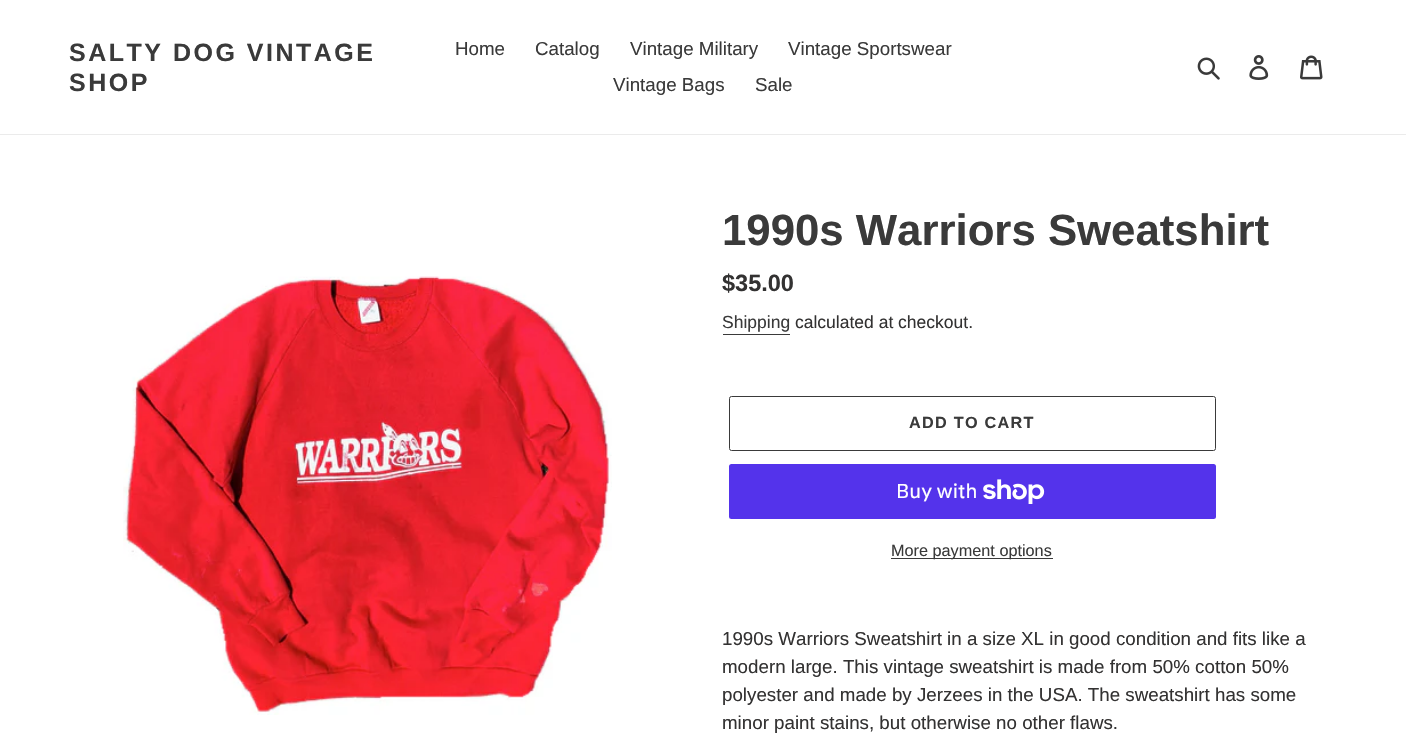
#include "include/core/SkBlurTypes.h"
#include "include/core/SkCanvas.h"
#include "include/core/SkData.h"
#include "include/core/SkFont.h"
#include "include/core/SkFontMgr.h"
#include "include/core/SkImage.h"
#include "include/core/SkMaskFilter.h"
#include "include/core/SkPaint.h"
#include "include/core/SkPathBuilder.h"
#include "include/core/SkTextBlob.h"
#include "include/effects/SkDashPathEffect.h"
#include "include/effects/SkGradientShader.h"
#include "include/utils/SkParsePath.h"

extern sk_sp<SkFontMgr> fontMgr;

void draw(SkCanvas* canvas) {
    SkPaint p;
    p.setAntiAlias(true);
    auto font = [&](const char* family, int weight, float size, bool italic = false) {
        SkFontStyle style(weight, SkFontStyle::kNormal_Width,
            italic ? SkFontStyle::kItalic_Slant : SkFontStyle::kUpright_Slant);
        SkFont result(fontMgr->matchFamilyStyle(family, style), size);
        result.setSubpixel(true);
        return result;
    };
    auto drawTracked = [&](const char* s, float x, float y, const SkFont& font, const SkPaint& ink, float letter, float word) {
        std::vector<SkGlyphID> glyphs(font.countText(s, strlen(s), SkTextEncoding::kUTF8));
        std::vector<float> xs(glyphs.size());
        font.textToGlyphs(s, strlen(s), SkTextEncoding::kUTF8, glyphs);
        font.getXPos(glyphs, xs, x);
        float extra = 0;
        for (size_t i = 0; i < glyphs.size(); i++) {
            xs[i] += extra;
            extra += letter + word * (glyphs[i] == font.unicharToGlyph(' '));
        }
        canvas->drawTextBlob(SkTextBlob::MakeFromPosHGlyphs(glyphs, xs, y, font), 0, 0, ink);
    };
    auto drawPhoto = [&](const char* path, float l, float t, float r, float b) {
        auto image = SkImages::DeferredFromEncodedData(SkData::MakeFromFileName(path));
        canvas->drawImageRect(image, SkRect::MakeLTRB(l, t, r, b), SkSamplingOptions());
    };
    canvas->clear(0xFFFFFFFF);
    p.setColor(0xFFEBEBEB);
    canvas->drawRect(SkRect::MakeLTRB(0, 134, 1406, 135), p);
    auto font1 = font("Liberation Sans", 700, 25);
    p.setColor(0xFF3A3A3A);
    drawTracked("SALTY DOG VINTAGE", 69, 61, font1, p, 2.5f, 0);
    drawTracked("SHOP", 69, 91, font1, p, 2.5f, 0);
    auto font2 = font("Liberation Sans", 400, 18.75f);
    {
        const struct { const char* s; float x, y; } items[] = {
            {"Home", 455, 55},
            {"Catalog", 535, 55},
            {"Vintage Military", 630, 55},
            {"Vintage Sportswear", 788, 55},
            {"Vintage Bags", 613, 91},
            {"Sale", 755, 91},
        };
        for (auto [s, x, y] : items) {
            canvas->drawString(s, x, y, font2, p);
        }
    }
    drawPhoto("media/1.png", 1197, 57, 1220, 80);
    drawPhoto("media/2.png", 1249, 55, 1269, 80);
    drawPhoto("media/3.png", 1300, 55, 1323, 80);
    drawPhoto("media/4.png", 123, 276, 612, 715);
    auto font3 = font("Liberation Sans", 700, 43.75f);
    canvas->drawString("1990s Warriors Sweatshirt", 722, 245, font3, p);
    auto font4 = font("Liberation Sans", 700, 23.5f);
    p.setColor(0xFF333232);
    canvas->drawString("$35.00", 722, 291, font4, p);
    auto font5 = font("Liberation Sans", 400, 17.5f);
    p.setColor(0xFF3A3A3A);
    canvas->drawString("Shipping", 722, 328, font5, p);
    canvas->drawRect(SkRect::MakeLTRB(723, 334, 790, 335), p);
    p.setColor(0xFF333232);
    canvas->drawString("calculated at checkout.", 795, 328, font5, p);
    p.setStyle(SkPaint::kStroke_Style);
    p.setStrokeWidth(1);
    p.setColor(0xFF3A3A3A);
    canvas->drawRoundRect(SkRect::MakeLTRB(729.5f, 396.5f, 1215.5f, 450.5f), 2, 2, p);
    auto font6 = font("Liberation Sans", 700, 16.25f);
    p.setStyle(SkPaint::kFill_Style);
    drawTracked("ADD TO CART", 909, 428, font6, p, 1.25f, 0);
    p.setColor(0xFF5433EB);
    canvas->drawRoundRect(SkRect::MakeLTRB(729, 464, 1216, 519), 2.5f, 2.5f, p);
    auto font7 = font("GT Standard", 400, 20);
    p.setColor(0xFFFFFFFF);
    canvas->drawString("Buy with", 896, 498, font7, p);
    drawPhoto("media/5.png", 983, 479, 1045, 504);
    p.setColor(0xFF3A3A3A);
    canvas->drawRect(SkRect::MakeLTRB(891, 558, 1053, 559), p);
    auto font8 = font("Liberation Sans", 400, 16.25f);
    canvas->drawString("More payment options", 891, 556, font8, p);
    p.setColor(0xFF333232);
    {
        const struct { const char* s; float x, y; } items[] = {
            {"1990s Warriors Sweatshirt in a size XL in good condition and fits like a", 722, 645},
            {"modern large. This vintage sweatshirt is made from 50% cotton 50%", 722, 673},
            {"polyester and made by Jerzees in the USA. The sweatshirt has some", 722, 701},
            {"minor paint stains, but otherwise no other flaws.", 722, 729},
        };
        for (auto [s, x, y] : items) {
            canvas->drawString(s, x, y, font2, p);
        }
    }
}
